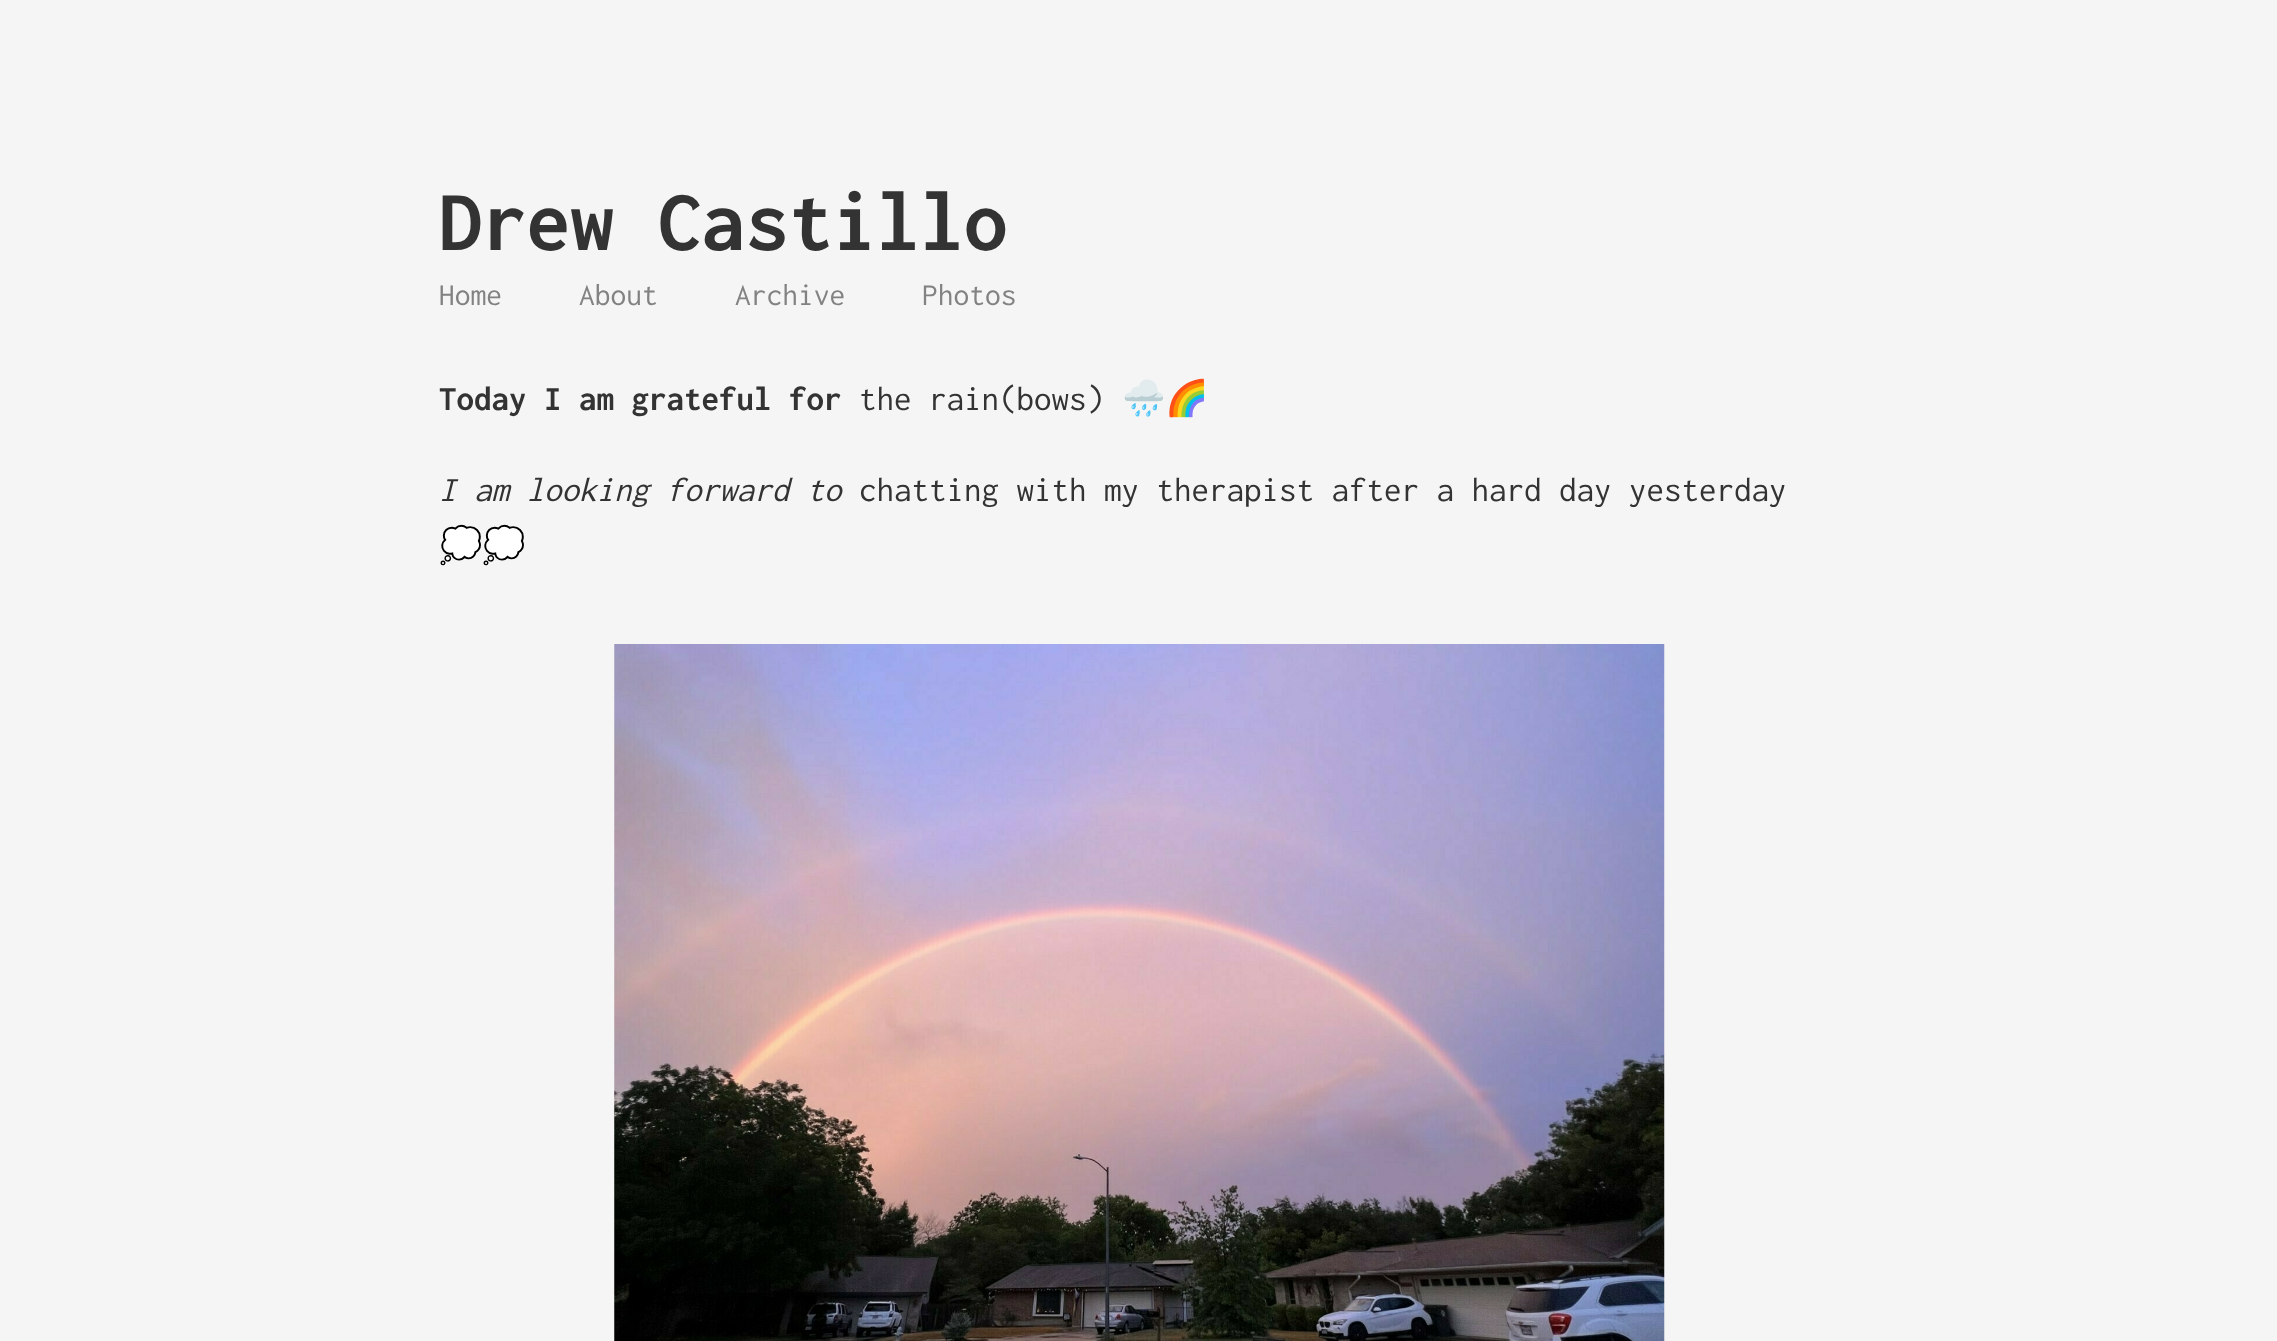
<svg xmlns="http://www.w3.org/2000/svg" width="2277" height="1341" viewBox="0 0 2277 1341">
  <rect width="100%" height="100%" fill="#f5f5f5"/>
  <image x="614" y="644" width="1051" height="697" href="img/1.png"/>
  <text x="439" y="250" font-family="Inconsolata" font-size="87.5" font-weight="bold" fill="#333">Drew Castillo</text>
  <g font-family="Inconsolata" font-size="31.5" fill="#828282">
    <text x="439" y="305">Home</text>
    <text x="579" y="305">About</text>
    <text x="735" y="305">Archive</text>
    <text x="922" y="305">Photos</text>
  </g>
  <text x="439" y="410" font-family="Inconsolata" font-size="35" font-weight="bold" fill="#333">Today I am grateful for</text>
  <text x="859" y="410" font-family="Inconsolata" font-size="35" fill="#333">the rain(bows)</text>
  <text x="1122" y="410" font-family="Noto Color Emoji" font-size="35" fill="#333">🌧️🌈</text>
  <text x="439" y="501" font-family="Inconsolata" font-size="35" font-style="italic" fill="#333">I am looking forward to</text>
  <text x="859" y="501" font-family="Inconsolata" font-size="35" fill="#333">chatting with my therapist after a hard day yesterday</text>
  <text x="439" y="557" font-family="Noto Color Emoji" font-size="35" fill="#333">💭💭</text>
</svg>
